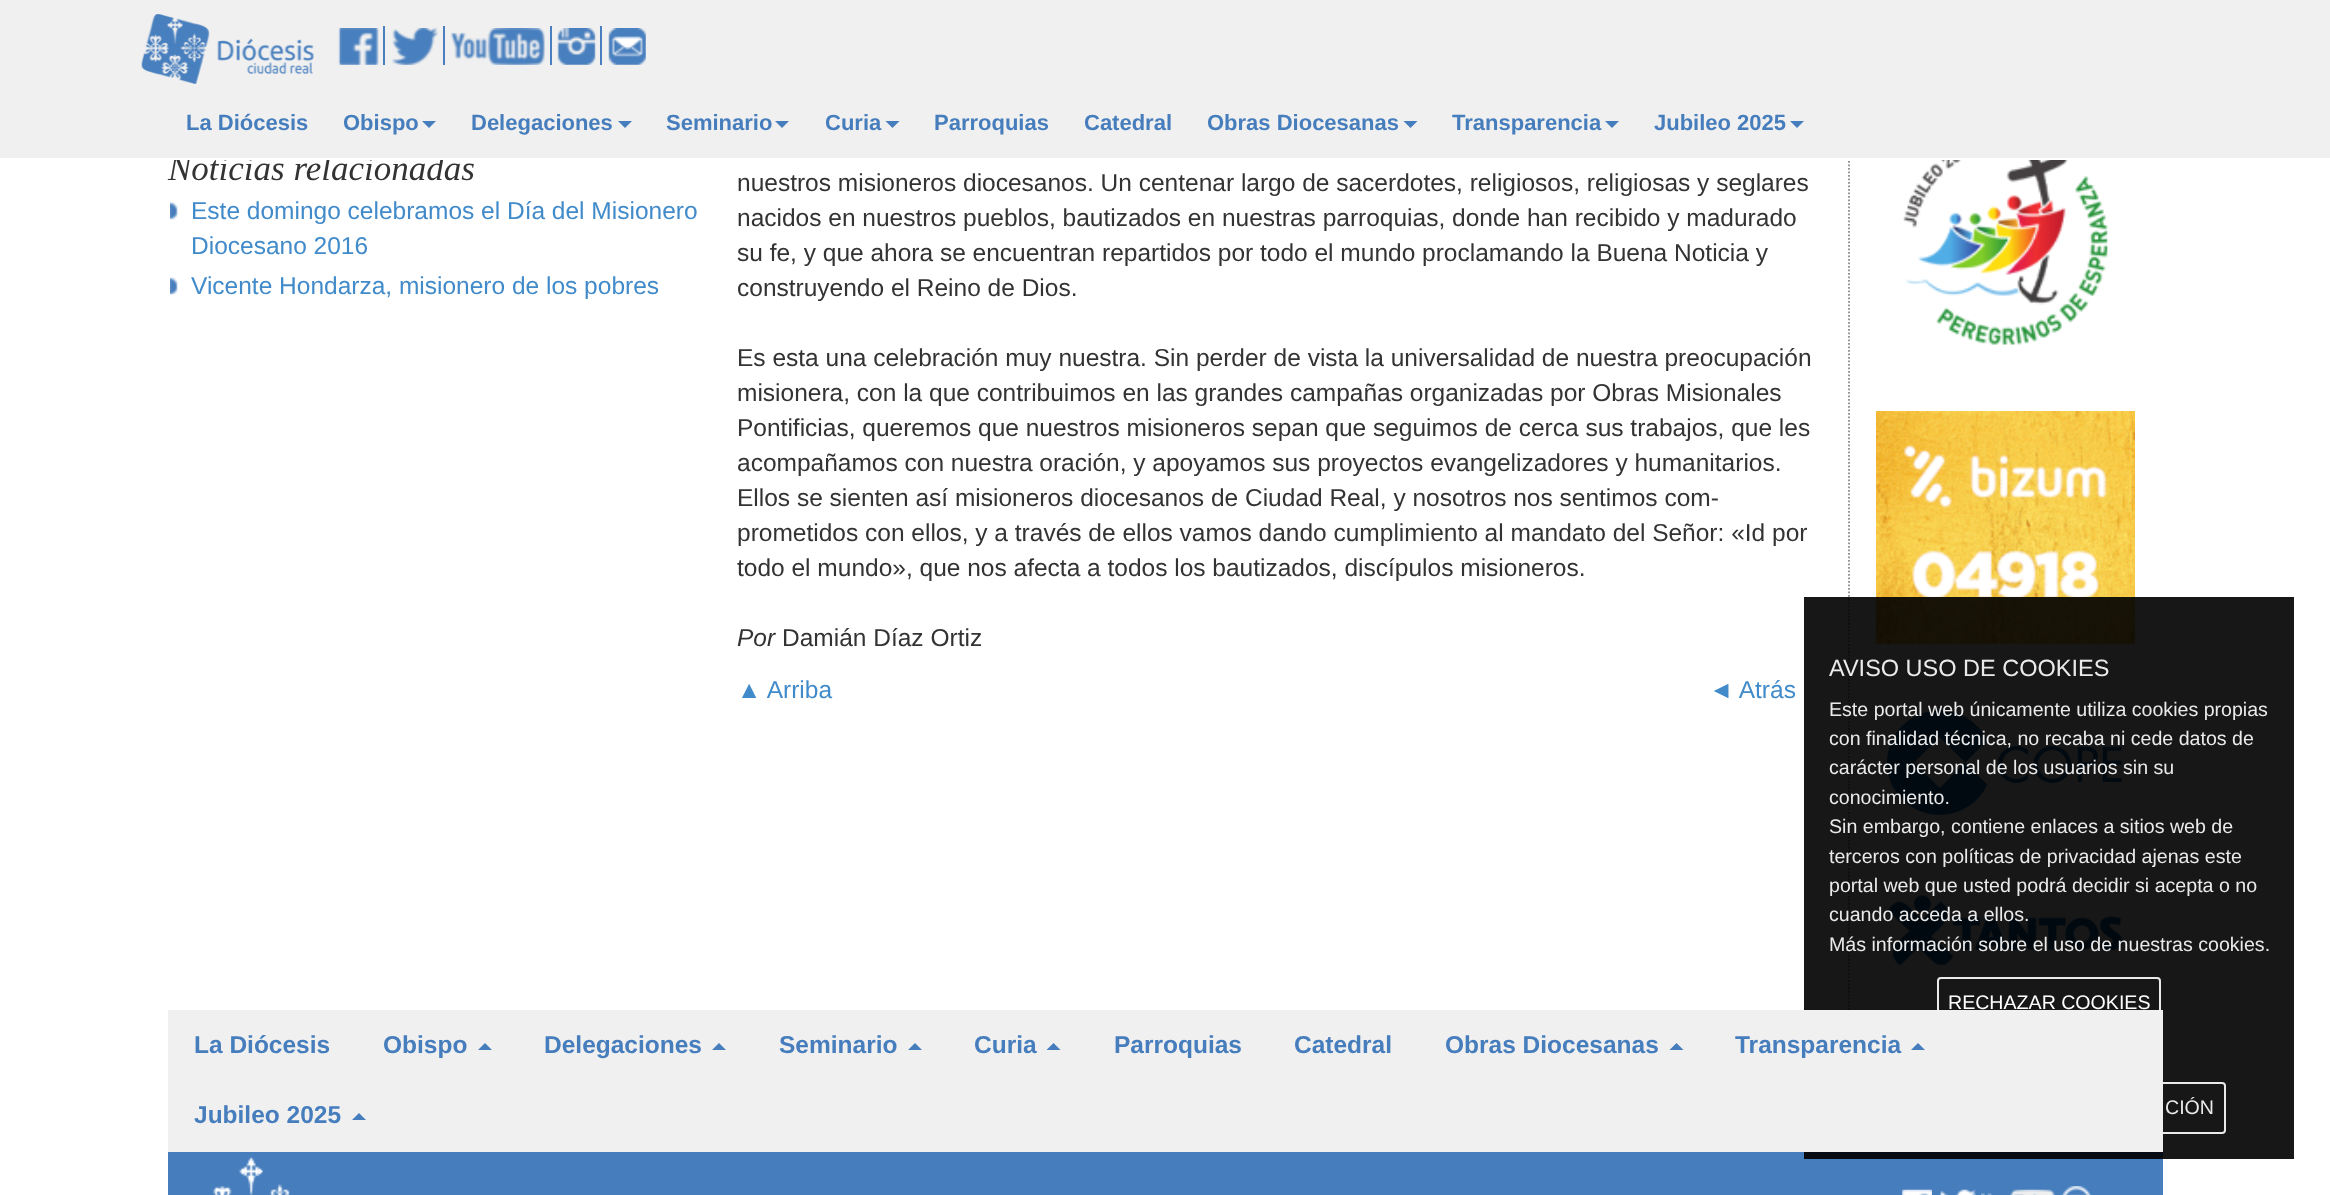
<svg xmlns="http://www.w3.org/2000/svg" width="2330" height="1195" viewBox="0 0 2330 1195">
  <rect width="100%" height="100%" fill="#fff"/>
  <image x="170" y="202" width="8" height="18" href="img/7.png"/>
  <image x="170" y="277" width="8" height="18" href="img/8.png"/>
  <path d="M1849-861V1010" fill="none" stroke="#8b8b8b" stroke-width="1.8" stroke-dasharray="1.75 1.75"/>
  <image x="1903" y="160" width="205" height="185" href="img/9.png"/>
  <image x="1876" y="411" width="259" height="233" href="img/10.png"/>
  <image x="1886" y="710" width="236" height="106" href="img/11.png"/>
  <image x="1887" y="895" width="236" height="70" href="img/12.png"/>
  <path d="M168 1152h1995v43H168z" fill="#467dbd"/>
  <path d="M1804 597h490v562H1804z" fill="#000000e8"/>
  <rect x="1938" y="978" width="222" height="50" rx="3" fill="none" stroke="#ffffffe8" stroke-width="2"/>
  <rect x="1874" y="1083" width="351" height="50" rx="3" fill="none" stroke="#ffffffe8" stroke-width="2"/>
  <path d="M168 1010h1995v142H168z" fill="#f0f0f0"/>
  <path d="M492 1050H478L485 1043Z" fill="#467dbd"/>
  <path d="M726 1050H712L719 1043Z" fill="#467dbd"/>
  <path d="M922 1050H908L915 1043Z" fill="#467dbd"/>
  <path d="M1060.5 1050H1046.5L1053.5 1043Z" fill="#467dbd"/>
  <path d="M1683.5 1050H1669.5L1676.5 1043Z" fill="#467dbd"/>
  <path d="M1925 1050H1911L1918 1043Z" fill="#467dbd"/>
  <path d="M366 1120H352L359 1113Z" fill="#467dbd"/>
  <image x="213" y="1156" width="77" height="39" href="img/13.png"/>
  <image x="1902" y="1189" width="30" height="6" href="img/14.png"/>
  <image x="1939" y="1189" width="37" height="6" href="img/15.png"/>
  <image x="1981" y="1189" width="74" height="6" href="img/16.png"/>
  <image x="2061" y="1186" width="31" height="9" href="img/17.png"/>
  <text x="168" y="180" font-family="Liberation Serif" font-size="35" font-style="italic" fill="#333">Noticias relacionadas</text>
  <path d="M0 0h2330v158H0z" fill="#f0f0f0"/>
  <path d="M1790 121H1804L1797 128Z" fill="#467dbd"/>
  <text x="1654" y="130" font-family="Liberation Sans" font-size="22" font-weight="bold" fill="#467dbd">Jubileo 2025</text>
  <path d="M1605 121H1619L1612 128Z" fill="#467dbd"/>
  <text x="1452" y="130" font-family="Liberation Sans" font-size="22" font-weight="bold" fill="#467dbd">Transparencia</text>
  <path d="M1403.5 121H1417.5L1410.5 128Z" fill="#467dbd"/>
  <g font-family="Liberation Sans" font-size="22" font-weight="bold" fill="#467dbd">
    <text x="1207" y="130">Obras Diocesanas</text>
    <text x="1084" y="130">Catedral</text>
    <text x="934" y="130">Parroquias</text>
  </g>
  <path d="M885.5 121H899.5L892.5 128Z" fill="#467dbd"/>
  <text x="825" y="130" font-family="Liberation Sans" font-size="22" font-weight="bold" fill="#467dbd">Curia</text>
  <path d="M775 121H789L782 128Z" fill="#467dbd"/>
  <text x="666" y="130" font-family="Liberation Sans" font-size="22" font-weight="bold" fill="#467dbd">Seminario</text>
  <path d="M618 121H632L625 128Z" fill="#467dbd"/>
  <text x="471" y="130" font-family="Liberation Sans" font-size="22" font-weight="bold" fill="#467dbd">Delegaciones</text>
  <path d="M422 121H436L429 128Z" fill="#467dbd"/>
  <g font-family="Liberation Sans" font-size="22" font-weight="bold" fill="#467dbd">
    <text x="343" y="130">Obispo</text>
    <text x="186" y="130">La Diócesis</text>
  </g>
  <image x="608" y="28" width="38" height="37" href="img/6.png"/>
  <image x="557" y="28" width="39" height="37" href="img/5.png"/>
  <path d="M600 26h2v39H600z" fill="#497fbe"/>
  <image x="450" y="28" width="95" height="37" href="img/4.png"/>
  <path d="M550 26h2v39H550z" fill="#497fbe"/>
  <image x="391" y="28" width="47" height="37" href="img/3.png"/>
  <path d="M443 26h2v39H443z" fill="#497fbe"/>
  <image x="338" y="28" width="41" height="37" href="img/2.png"/>
  <path d="M383 26h2v39H383z" fill="#497fbe"/>
  <image x="141" y="14" width="173" height="70" href="img/1.png"/>
  <path d="M172 158h1678v2H172z" fill="#fff"/>
  <g font-family="Liberation Sans" font-size="24.5" fill="#428bca">
    <text x="191" y="219">Este domingo celebramos el Día del Misionero</text>
    <text x="191" y="254">Diocesano 2016</text>
    <text x="191" y="294">Vicente Hondarza, misionero de los pobres</text>
  </g>
  <g font-family="Liberation Sans" font-size="24.5" fill="#333">
    <text x="737" y="191">nuestros misioneros diocesanos. Un centenar largo de sacerdotes, religiosos, religiosas y seglares</text>
    <text x="737" y="226">nacidos en nuestros pueblos, bautizados en nuestras parroquias, donde han recibido y madurado</text>
    <text x="737" y="261">su fe, y que ahora se encuentran repartidos por todo el mundo proclamando la Buena Noticia y</text>
    <text x="737" y="296">construyendo el Reino de Dios.</text>
    <text x="737" y="366">Es esta una celebración muy nuestra. Sin perder de vista la universalidad de nuestra preocupación</text>
    <text x="737" y="401">misionera, con la que contribuimos en las grandes campañas organizadas por Obras Misionales</text>
    <text x="737" y="436">Pontificias, queremos que nuestros misioneros sepan que seguimos de cerca sus trabajos, que les</text>
    <text x="737" y="471">acompañamos con nuestra oración, y apoyamos sus proyectos evangelizadores y humanitarios.</text>
    <text x="737" y="506">Ellos se sienten así misioneros diocesanos de Ciudad Real, y nosotros nos sentimos com-</text>
    <text x="737" y="541">prometidos con ellos, y a través de ellos vamos dando cumplimiento al mandato del Señor: «Id por</text>
    <text x="737" y="576">todo el mundo», que nos afecta a todos los bautizados, discípulos misioneros.</text>
  </g>
  <text x="737" y="646" font-family="Liberation Sans" font-size="24.5" font-style="italic" fill="#333">Por</text>
  <text x="782" y="646" font-family="Liberation Sans" font-size="24.5" fill="#333">Damián Díaz Ortiz</text>
  <g font-family="Liberation Sans" font-size="24.5" fill="#428bca">
    <text x="737" y="698">▲ Arriba</text>
    <text x="1709" y="698">◄ Atrás</text>
  </g>
  <g font-family="Liberation Sans" font-size="24.5" font-weight="bold" fill="#467dbd">
    <text x="194" y="1053">La Diócesis</text>
    <text x="383" y="1053">Obispo</text>
    <text x="544" y="1053">Delegaciones</text>
    <text x="779" y="1053">Seminario</text>
    <text x="974" y="1053">Curia</text>
    <text x="1114" y="1053">Parroquias</text>
    <text x="1294" y="1053">Catedral</text>
    <text x="1445" y="1053">Obras Diocesanas</text>
    <text x="1735" y="1053">Transparencia</text>
    <text x="194" y="1123">Jubileo 2025</text>
  </g>
  <text x="1829" y="676" font-family="Liberation Sans" font-size="23.5" fill="#eaeaea">AVISO USO DE COOKIES</text>
  <g font-family="Liberation Sans" font-size="19.6" fill="#eaeaea">
    <text x="1829" y="716">Este portal web únicamente utiliza cookies propias</text>
    <text x="1829" y="745">con finalidad técnica, no recaba ni cede datos de</text>
    <text x="1829" y="774">carácter personal de los usuarios sin su</text>
    <text x="1829" y="804">conocimiento.</text>
    <text x="1829" y="833">Sin embargo, contiene enlaces a sitios web de</text>
    <text x="1829" y="863">terceros con políticas de privacidad ajenas este</text>
    <text x="1829" y="892">portal web que usted podrá decidir si acepta o no</text>
    <text x="1829" y="921">cuando acceda a ellos.</text>
    <text x="1829" y="951">Más información sobre el uso de nuestras cookies.</text>
  </g>
  <text x="1948" y="1009" font-family="Liberation Sans" font-size="19.6" fill="#fff">RECHAZAR COOKIES</text>
  <text x="2165" y="1114" font-family="Liberation Sans" font-size="19.6" fill="#eaeaea">CIÓN</text>
</svg>
